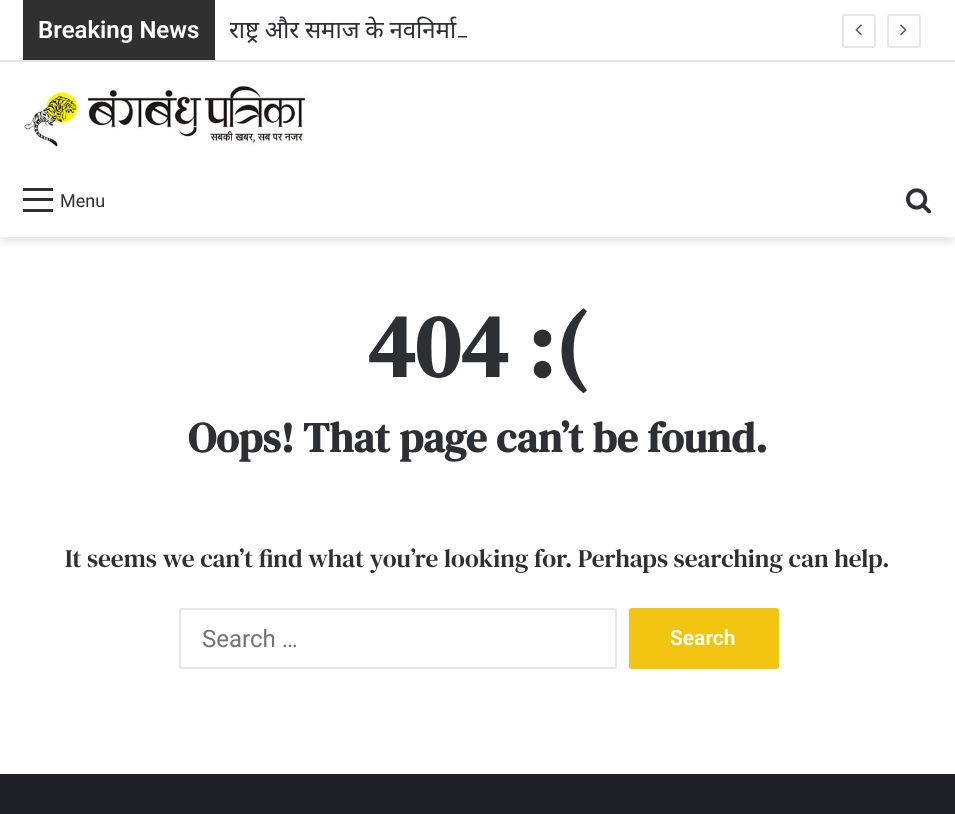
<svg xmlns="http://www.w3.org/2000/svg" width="955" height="814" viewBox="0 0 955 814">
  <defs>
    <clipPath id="clip1"><path d="M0 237h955v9H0z"/></clipPath>
    <clipPath id="clip2"><path d="M230 0h598v60H230z"/></clipPath>
  </defs>
  <rect width="100%" height="100%" fill="#fff"/>
  <g clip-path="url(#clip1)">
    <path d="M0 66h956v176H0z" fill="#0000001a" filter="blur(5px)"/>
  </g>
  <path d="M0 60h955v2H0z" fill="#e6e6e6"/>
  <path d="M23 0h192v60H23z" fill="#303030"/>
  <rect x="843" y="15" width="32" height="32" rx="2" fill="none" stroke="#e6e6e6" stroke-width="2"/>
  <image x="855" y="24" width="7" height="12" href="img/1.png"/>
  <rect x="888" y="15" width="32" height="32" rx="2" fill="none" stroke="#e6e6e6" stroke-width="2"/>
  <image x="900" y="24" width="7" height="12" href="img/2.png"/>
  <image x="23" y="83" width="285" height="65" href="img/3.png"/>
  <path d="M23 198h30v3H23z" fill="#2c2f34"/>
  <path d="M23 188h30v3H23z" fill="#2c2f34"/>
  <path d="M23 209h30v3H23z" fill="#2c2f34"/>
  <image x="906" y="188" width="26" height="26" href="img/4.png"/>
  <rect x="180" y="609" width="436" height="59" rx="2" fill="none" stroke="#e6e6e6" stroke-width="2"/>
  <rect x="629" y="608" width="150" height="61" rx="3" fill="#f1c40f"/>
  <path d="M0 774h955v40H0z" fill="#1f2024"/>
  <text x="38" y="38" font-family="Roboto" font-size="24" font-weight="600" fill="#fff">Breaking News</text>
  <g clip-path="url(#clip2)">
    <text x="229" y="38" word-spacing="-0.5" font-family="Noto Sans" font-size="24" fill="#2c2f34">राष्ट्र और समाज के नवनिर्मा</text>
  </g>
  <text x="458" y="36" font-family="Roboto" font-size="20" fill="#2c2f34">_</text>
  <text x="60" y="207" font-family="Roboto" font-size="18" fill="#2c2f34">Menu</text>
  <text x="367" y="377" font-family="DM Serif Text" font-size="90" font-weight="bold" fill="#2c2f34">404 :(</text>
  <text x="188" y="452" font-family="DM Serif Text" font-size="42" font-weight="bold" fill="#2c2f34">Oops! That page can’t be found.</text>
  <text x="65" y="567" font-family="DM Serif Text" font-size="25.5" fill="#2c2f34">It seems we can’t find what you’re looking for. Perhaps searching can help.</text>
  <text x="202" y="647" font-family="Roboto" font-size="24" fill="#757575">Search …</text>
  <text x="670" y="645" font-family="Roboto" font-size="21" font-weight="600" fill="#fff">Search</text>
</svg>
